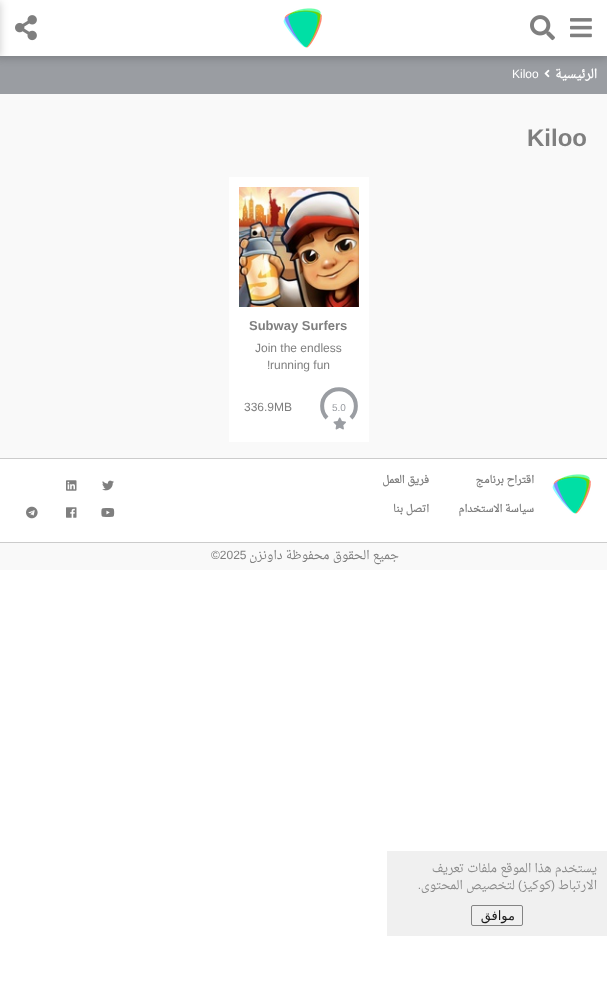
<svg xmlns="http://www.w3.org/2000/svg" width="607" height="996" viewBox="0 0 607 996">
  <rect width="100%" height="100%" fill="#fff"/>
  <path d="M0 56h607v38H0z" fill="#9a9da2"/>
  <image x="544" y="69" width="6" height="9" href="img/5.png"/>
  <path d="M0 2h607v56H0z" fill="#00000033" filter="blur(4px)"/>
  <path d="M0 0h607v56H0z" fill="#fff"/>
  <image x="570" y="18" width="22" height="20" href="img/1.png"/>
  <image x="530" y="15" width="25" height="26" href="img/2.png"/>
  <image x="283" y="8" width="39" height="40" href="img/3.png"/>
  <image x="15" y="15" width="22" height="26" href="img/4.png"/>
  <path d="M-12 2h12v55H-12z" fill="#00000033" filter="blur(4px)"/>
  <path d="M0 94h607v364H0z" fill="#f9f9f9"/>
  <path d="M229 177h140v265H229z" fill="#fff"/>
  <image x="239" y="187" width="120" height="120" href="img/6.png"/>
  <path d="M351 418C357.5 411.5 357.5 400.5 351 394C344.5 387.5 333.5 387.5 327 394C320.5 400.5 320.5 411.5 327 418" fill="none" stroke="#9a9da2" stroke-width="4"/>
  <image x="333" y="417" width="13" height="13" href="img/7.png"/>
  <path d="M0 458h607v1H0z" fill="#ccc"/>
  <path d="M0 542h607v1H0z" fill="#ccc"/>
  <image x="552" y="474" width="39" height="40" href="img/3.png"/>
  <image x="102" y="480" width="12" height="11" href="img/8.png"/>
  <image x="66" y="480" width="11" height="11" href="img/9.png"/>
  <image x="101" y="508" width="14" height="9" href="img/10.png"/>
  <image x="66" y="507" width="11" height="11" href="img/11.png"/>
  <image x="26" y="506" width="12" height="13" href="img/12.png"/>
  <path d="M0 543h607v27H0z" fill="#f9f9f9"/>
  <path d="M387 851h220v85H387z" fill="#f0f0f0"/>
  <rect x="471.5" y="905.5" width="51" height="20" rx="1.5" fill="none" stroke="#848484"/>
  <text x="597" y="78" font-family="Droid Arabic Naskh" font-size="12" font-weight="bold" direction="rtl" fill="#fff">الرئيسية</text>
  <text x="512" y="78" font-family="Liberation Sans" font-size="12" fill="#fff">Kiloo</text>
  <text x="527" y="146" font-family="Liberation Sans" font-size="24" font-weight="bold" fill="#7f7f7f">Kiloo</text>
  <text x="249" y="330" font-family="Liberation Sans" font-size="13" font-weight="bold" fill="#7f7f7f">Subway Surfers</text>
  <g font-family="Liberation Sans" font-size="12" fill="#7f7f7f">
    <text x="255" y="352">Join the endless</text>
    <text x="270" y="369">running fun</text>
    <text x="267" y="369">!</text>
  </g>
  <text x="332" y="411" font-family="Liberation Sans" font-size="10" fill="#9a9da2">5.0</text>
  <text x="244" y="411" font-family="Liberation Sans" font-size="12" fill="#7f7f7f">336.9MB</text>
  <g font-family="Droid Arabic Naskh" font-size="10.25" font-weight="bold" direction="rtl" fill="#7f7f7f">
    <text x="534" y="483">اقتراح برنامج</text>
    <text x="429" y="483">فريق العمل</text>
    <text x="534" y="512">سياسة الاستخدام</text>
    <text x="429" y="512">اتصل بنا</text>
  </g>
  <text x="399" y="559" font-family="Droid Arabic Naskh" font-size="12" direction="rtl" fill="#7f7f7f">جميع الحقوق محفوظة داونزن</text>
  <text x="211" y="559" font-family="Liberation Sans" font-size="12" fill="#7f7f7f">©2025</text>
  <g font-family="Droid Arabic Naskh" font-size="12" direction="rtl" fill="#8c8c8c">
    <text x="597" y="872">يستخدم هذا الموقع ملفات تعريف</text>
    <text x="597" y="889">الارتباط</text>
  </g>
  <g font-family="Liberation Sans" font-size="12" direction="rtl" fill="#8c8c8c">
    <text x="555" y="889">(</text>
    <text x="522" y="889">)</text>
  </g>
  <g font-family="Droid Arabic Naskh" font-size="12" direction="rtl" fill="#8c8c8c">
    <text x="551" y="889">كوكيز</text>
    <text x="515" y="889">لتخصيص المحتوى</text>
  </g>
  <text x="421" y="889" font-family="Liberation Sans" font-size="12" direction="rtl" fill="#8c8c8c">.</text>
  <text x="515" y="920" font-family="DejaVu Sans" font-size="13" direction="rtl" fill="#1a1a1a">موافق</text>
</svg>
